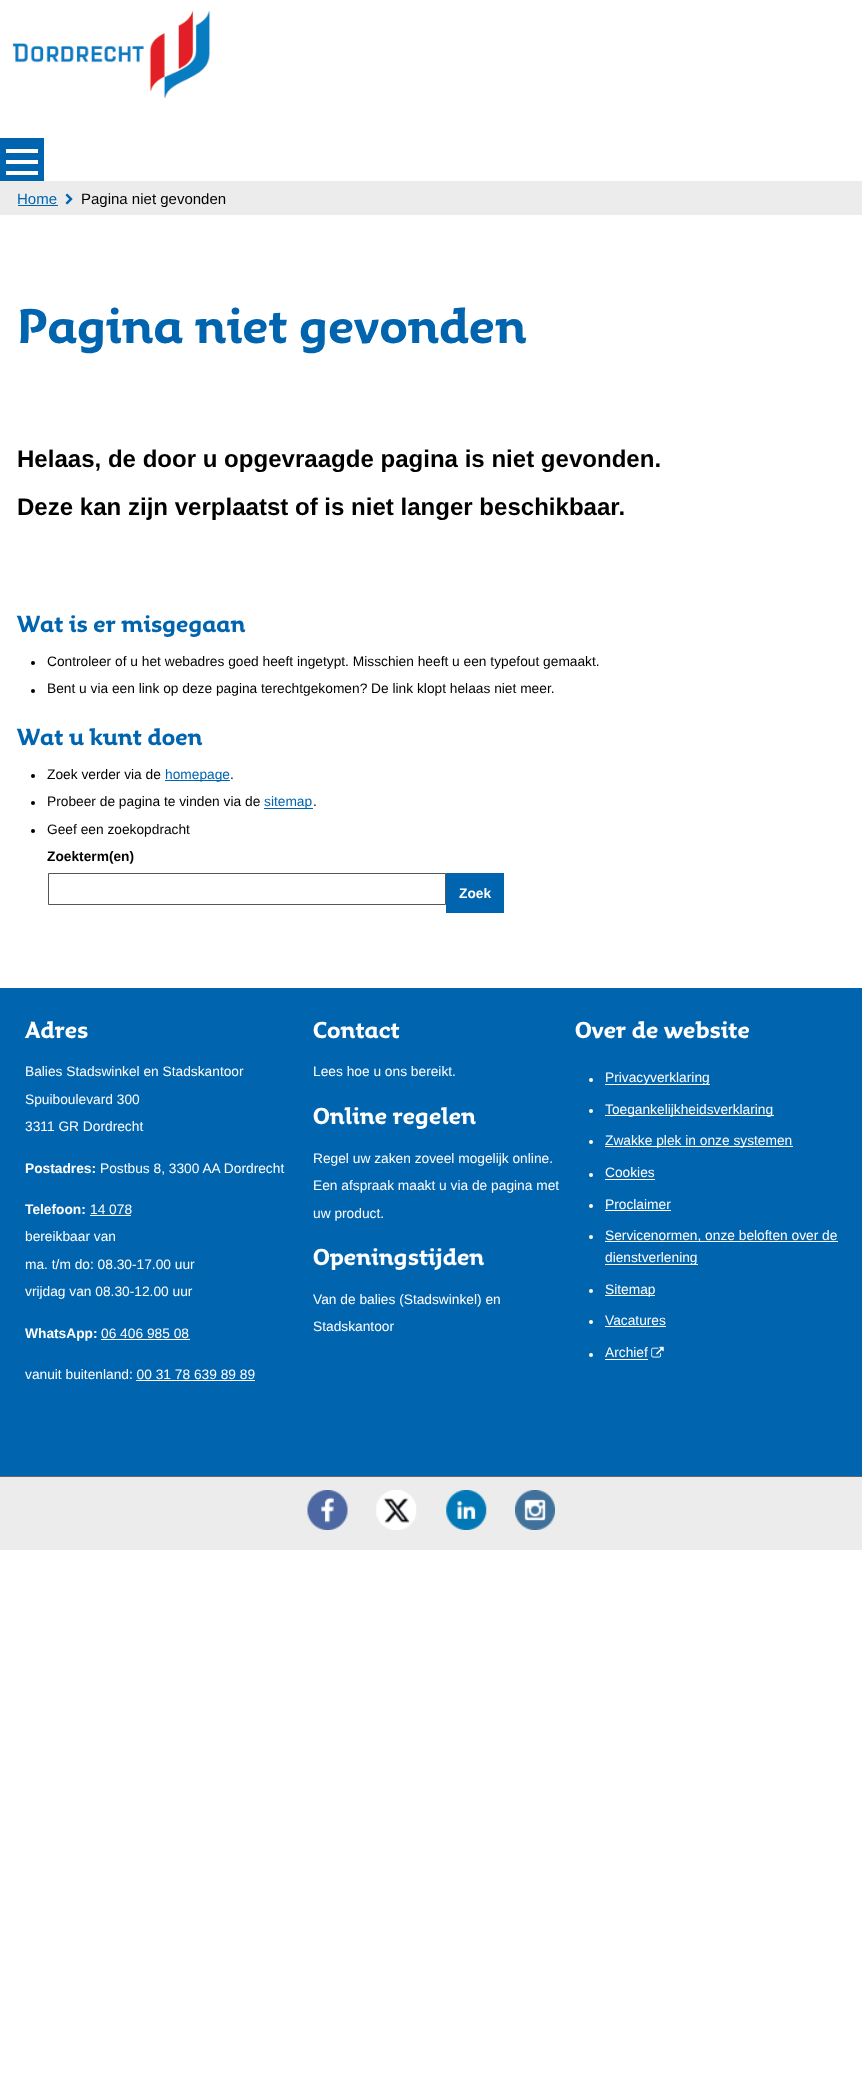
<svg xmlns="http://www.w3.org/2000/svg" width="862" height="2089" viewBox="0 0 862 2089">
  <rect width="100%" height="100%" fill="#fff"/>
  <image x="12" y="10" width="199" height="88" href="img/1.png"/>
  <path d="M0 138h44v43H0z" fill="#0064af"/>
  <path d="M6 171h32v4H6z" fill="#fff"/>
  <path d="M6 160h32v4H6z" fill="#fff"/>
  <path d="M6 149h32v4H6z" fill="#fff"/>
  <path d="M0 181h862v34H0z" fill="#ececec"/>
  <path d="M18 205h40v1H18z" fill="#0064af"/>
  <image x="65" y="193" width="8" height="12" href="img/2.png"/>
  <circle cx="33" cy="663" r="2" fill="#000"/>
  <circle cx="33" cy="691" r="2" fill="#000"/>
  <circle cx="33" cy="776" r="2" fill="#000"/>
  <path d="M165 780h65v1H165z" fill="#0064af"/>
  <circle cx="33" cy="803" r="2" fill="#000"/>
  <path d="M264 808h49v1H264z" fill="#0064af"/>
  <circle cx="33" cy="831" r="2" fill="#000"/>
  <path d="M48.5 873.5h397v31H48.5z" fill="none" stroke="#555"/>
  <path d="M446 873h58v40H446z" fill="#0064af"/>
  <path d="M0 988h862v488H0z" fill="#0064af"/>
  <path d="M90 1215h41v1H90z" fill="#fff"/>
  <path d="M101 1339h89v1H101z" fill="#fff"/>
  <path d="M136 1380h119v1H136z" fill="#fff"/>
  <circle cx="591" cy="1080" r="2" fill="#fff"/>
  <path d="M605 1084h105v1H605z" fill="#fff"/>
  <circle cx="591" cy="1111" r="2" fill="#fff"/>
  <path d="M605 1115h169v1H605z" fill="#fff"/>
  <circle cx="591" cy="1142" r="2" fill="#fff"/>
  <path d="M605 1146h188v1H605z" fill="#fff"/>
  <circle cx="591" cy="1175" r="2" fill="#fff"/>
  <path d="M605 1179h50v1H605z" fill="#fff"/>
  <circle cx="591" cy="1206" r="2" fill="#fff"/>
  <path d="M605 1210h66v1H605z" fill="#fff"/>
  <circle cx="591" cy="1237" r="2" fill="#fff"/>
  <path d="M605 1241h233v1H605z" fill="#fff"/>
  <path d="M605 1264h93v1H605z" fill="#fff"/>
  <circle cx="591" cy="1291" r="2" fill="#fff"/>
  <path d="M605 1295h50v1H605z" fill="#fff"/>
  <circle cx="591" cy="1322" r="2" fill="#fff"/>
  <path d="M605 1326h61v1H605z" fill="#fff"/>
  <circle cx="591" cy="1355" r="2" fill="#fff"/>
  <path d="M605 1359h43v1H605z" fill="#fff"/>
  <image x="651" y="1346" width="13" height="12" href="img/3.png"/>
  <path d="M0 1477h862v73H0z" fill="#ececec"/>
  <path d="M0 1476h862v1H0z" fill="#666"/>
  <image x="307" y="1490" width="41" height="40" href="img/4.png"/>
  <image x="376" y="1490" width="41" height="40" href="img/5.png"/>
  <image x="446" y="1490" width="41" height="40" href="img/6.png"/>
  <image x="515" y="1490" width="40" height="40" href="img/7.png"/>
  <text x="17" y="204" font-family="Liberation Sans" font-size="15" fill="#0064af">Home</text>
  <text x="81" y="204" font-family="Liberation Sans" font-size="15" fill="#000">Pagina niet gevonden</text>
  <text x="17" y="343" font-family="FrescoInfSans" font-size="47.25" font-weight="bold" fill="#0064af">Pagina niet gevonden</text>
  <g font-family="Liberation Sans" font-size="24.05" font-weight="bold" fill="#000">
    <text x="17" y="467">Helaas, de door u opgevraagde pagina is niet gevonden.</text>
    <text x="17" y="515">Deze kan zijn verplaatst of is niet langer beschikbaar.</text>
  </g>
  <text x="17" y="632" font-family="FrescoInfSans" font-size="22.5" font-weight="bold" fill="#0064af">Wat is er misgegaan</text>
  <g font-family="Liberation Sans" font-size="13.75" fill="#000">
    <text x="47" y="666">Controleer of u het webadres goed heeft ingetypt. Misschien heeft u een typefout gemaakt.</text>
    <text x="47" y="693">Bent u via een link op deze pagina terechtgekomen? De link klopt helaas niet meer.</text>
  </g>
  <text x="17" y="745" font-family="FrescoInfSans" font-size="22.5" font-weight="bold" fill="#0064af">Wat u kunt doen</text>
  <text x="47" y="779" font-family="Liberation Sans" font-size="13.75" fill="#000">Zoek verder via de</text>
  <text x="165" y="779" font-family="Liberation Sans" font-size="13.75" fill="#0064af">homepage</text>
  <g font-family="Liberation Sans" font-size="13.75" fill="#000">
    <text x="230" y="779">.</text>
    <text x="47" y="806">Probeer de pagina te vinden via de</text>
  </g>
  <text x="264" y="806" font-family="Liberation Sans" font-size="13.75" fill="#0064af">sitemap</text>
  <g font-family="Liberation Sans" font-size="13.75" fill="#000">
    <text x="313" y="806">.</text>
    <text x="47" y="834">Geef een zoekopdracht</text>
  </g>
  <text x="47" y="861" font-family="Liberation Sans" font-size="13.75" font-weight="bold" fill="#000">Zoekterm(en)</text>
  <text x="459" y="898" font-family="Liberation Sans" font-size="13.75" font-weight="bold" fill="#fff">Zoek</text>
  <text x="25" y="1038" font-family="FrescoInfSans" font-size="22.5" font-weight="bold" fill="#fff">Adres</text>
  <g font-family="Liberation Sans" font-size="13.75" fill="#fff">
    <text x="25" y="1076">Balies Stadswinkel en Stadskantoor</text>
    <text x="25" y="1104">Spuiboulevard 300</text>
    <text x="25" y="1131">3311 GR Dordrecht</text>
  </g>
  <text x="25" y="1173" font-family="Liberation Sans" font-size="13.75" font-weight="bold" fill="#fff">Postadres:</text>
  <text x="100" y="1173" font-family="Liberation Sans" font-size="13.75" fill="#fff">Postbus 8, 3300 AA Dordrecht</text>
  <text x="25" y="1214" font-family="Liberation Sans" font-size="13.75" font-weight="bold" fill="#fff">Telefoon:</text>
  <g font-family="Liberation Sans" font-size="13.75" fill="#fff">
    <text x="90" y="1214">14 078</text>
    <text x="25" y="1241">bereikbaar van</text>
    <text x="25" y="1269">ma. t/m do: 08.30-17.00 uur</text>
    <text x="25" y="1296">vrijdag van 08.30-12.00 uur</text>
  </g>
  <text x="25" y="1338" font-family="Liberation Sans" font-size="13.75" font-weight="bold" fill="#fff">WhatsApp:</text>
  <g font-family="Liberation Sans" font-size="13.75" fill="#fff">
    <text x="101" y="1338">06 406 985 08</text>
    <text x="25" y="1379">vanuit buitenland: 00 31 78 639 89 89</text>
  </g>
  <text x="313" y="1038" font-family="FrescoInfSans" font-size="22.5" font-weight="bold" fill="#fff">Contact</text>
  <text x="313" y="1076" font-family="Liberation Sans" font-size="13.75" fill="#fff">Lees hoe u ons bereikt.</text>
  <text x="313" y="1124" font-family="FrescoInfSans" font-size="22.5" font-weight="bold" fill="#fff">Online regelen</text>
  <g font-family="Liberation Sans" font-size="13.75" fill="#fff">
    <text x="313" y="1163">Regel uw zaken zoveel mogelijk online.</text>
    <text x="313" y="1190">Een afspraak maakt u via de pagina met</text>
    <text x="313" y="1218">uw product.</text>
  </g>
  <text x="313" y="1265" font-family="FrescoInfSans" font-size="22.5" font-weight="bold" fill="#fff">Openingstijden</text>
  <g font-family="Liberation Sans" font-size="13.75" fill="#fff">
    <text x="313" y="1304">Van de balies (Stadswinkel) en</text>
    <text x="313" y="1331">Stadskantoor</text>
  </g>
  <text x="575" y="1038" font-family="FrescoInfSans" font-size="22.5" font-weight="bold" fill="#fff">Over de website</text>
  <g font-family="Liberation Sans" font-size="13.75" fill="#fff">
    <text x="605" y="1082">Privacyverklaring</text>
    <text x="605" y="1114">Toegankelijkheidsverklaring</text>
    <text x="605" y="1145">Zwakke plek in onze systemen</text>
    <text x="605" y="1177">Cookies</text>
    <text x="605" y="1209">Proclaimer</text>
    <text x="605" y="1240">Servicenormen, onze beloften over de</text>
    <text x="605" y="1262">dienstverlening</text>
    <text x="605" y="1294">Sitemap</text>
    <text x="605" y="1325">Vacatures</text>
    <text x="605" y="1357">Archief</text>
  </g>
</svg>
